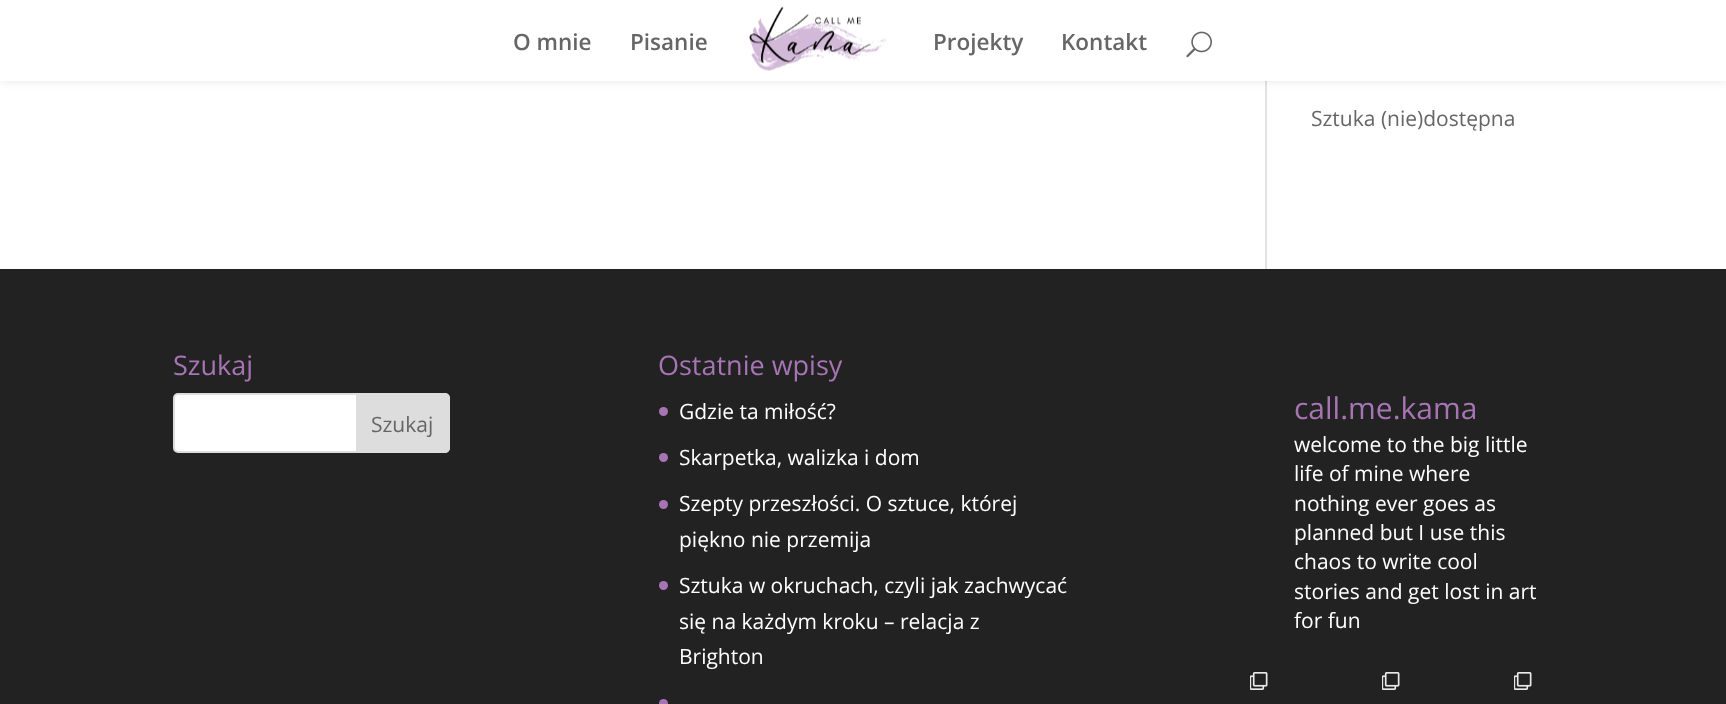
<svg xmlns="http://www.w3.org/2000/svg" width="1726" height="704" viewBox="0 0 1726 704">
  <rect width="100%" height="100%" fill="#fff"/>
  <path d="M1265 81h2v188H1265z" fill="#e2e2e2"/>
  <path d="M0 0h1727v81H0z" fill="#0000001a" filter="blur(5px)"/>
  <path d="M0 0h1726v81H0z" fill="#fff"/>
  <image x="749" y="6" width="138" height="65" href="img/1.png"/>
  <image x="1186" y="31" width="26" height="27" href="img/2.png"/>
  <path d="M0 269h1726v435H0z" fill="#222"/>
  <rect x="174" y="394" width="275" height="58" rx="4" fill="#fff" stroke="#ddd" stroke-width="2"/>
  <path d="M357 394H445C447 394 449 396 449 398V448C449 450 447 452 445 452H357Z" fill="#ddd" stroke="#ddd" stroke-width="2"/>
  <circle cx="663.5" cy="411.5" r="4.5" fill="#a774b4"/>
  <circle cx="663.5" cy="457.5" r="4.5" fill="#a774b4"/>
  <circle cx="663.5" cy="504.5" r="4.5" fill="#a774b4"/>
  <circle cx="663.5" cy="585.5" r="4.5" fill="#a774b4"/>
  <circle cx="663.5" cy="703.5" r="4.5" fill="#a774b4"/>
  <image x="1250" y="672" width="18" height="18" href="img/3.png"/>
  <image x="1382" y="672" width="18" height="18" href="img/3.png"/>
  <image x="1514" y="672" width="18" height="18" href="img/3.png"/>
  <g font-family="Open Sans" font-size="22.5" font-weight="600" fill="#666">
    <text x="513" y="50">O mnie</text>
    <text x="630" y="50">Pisanie</text>
    <text x="933" y="50">Projekty</text>
    <text x="1061" y="50">Kontakt</text>
  </g>
  <text x="1311" y="126" font-family="Open Sans" font-size="21" fill="#666">Sztuka (nie)dostępna</text>
  <text x="173" y="375" font-family="Open Sans" font-size="27" fill="#a774b4">Szukaj</text>
  <text x="371" y="432" font-family="Open Sans" font-size="21" fill="#666">Szukaj</text>
  <text x="658" y="375" font-family="Open Sans" font-size="27" fill="#a774b4">Ostatnie wpisy</text>
  <g font-family="Open Sans" font-size="21" fill="#fff">
    <text x="679" y="419">Gdzie ta miłość?</text>
    <text x="679" y="465">Skarpetka, walizka i dom</text>
    <text x="679" y="511">Szepty przeszłości. O sztuce, której</text>
    <text x="679" y="547">piękno nie przemija</text>
    <text x="679" y="593">Sztuka w okruchach, czyli jak zachwycać</text>
    <text x="679" y="629">się na każdym kroku – relacja z</text>
    <text x="679" y="664">Brighton</text>
  </g>
  <text x="1294" y="419" font-family="Open Sans" font-size="30" fill="#a774b4">call.me.kama</text>
  <g font-family="Open Sans" font-size="21" fill="#fff">
    <text x="1294" y="452">welcome to the big little</text>
    <text x="1294" y="481">life of mine where</text>
    <text x="1294" y="511">nothing ever goes as</text>
    <text x="1294" y="540">planned but I use this</text>
    <text x="1294" y="569">chaos to write cool</text>
    <text x="1294" y="599">stories and get lost in art</text>
    <text x="1294" y="628">for fun</text>
  </g>
</svg>
